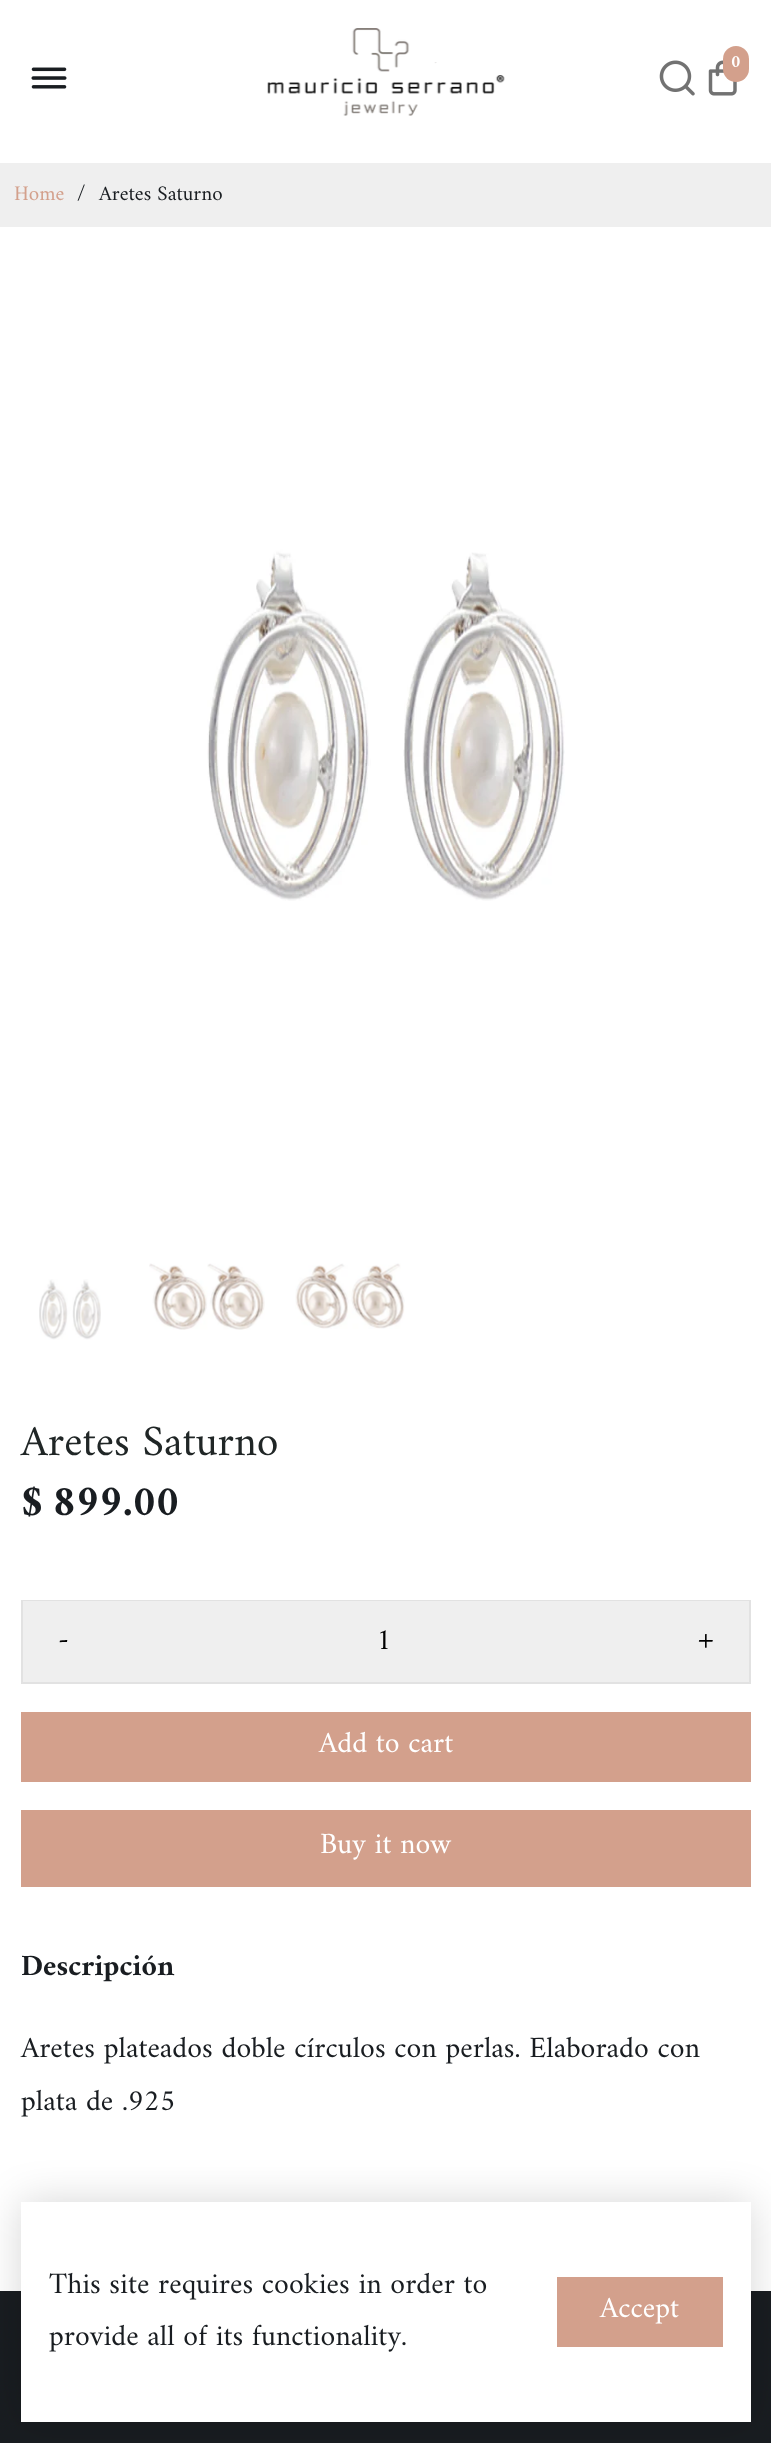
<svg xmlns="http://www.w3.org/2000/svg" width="771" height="2443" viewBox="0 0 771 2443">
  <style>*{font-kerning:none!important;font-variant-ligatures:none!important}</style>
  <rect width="100%" height="100%" fill="#fff"/>
  <image x="267" y="28" width="238" height="88" href="img/1.png"/>
  <image x="659" y="60" width="36" height="36" href="img/2.png"/>
  <image x="708" y="60" width="29" height="36" href="img/3.png"/>
  <rect x="723" y="46" width="26" height="36" rx="13" fill="#d3a08c"/>
  <image x="31" y="67" width="36" height="22" href="img/4.png"/>
  <path d="M0 163h771v64H0z" fill="#efefef"/>
  <image x="0" y="227" width="771" height="674" href="img/5.png"/>
  <image x="39" y="1279" width="62" height="61" href="img/6.png"/>
  <image x="149" y="1263" width="116" height="67" href="img/7.png"/>
  <image x="295" y="1263" width="110" height="66" href="img/8.png"/>
  <path d="M22 1601h728v82H22z" fill="none" stroke="#e2e2e2" stroke-width="2"/>
  <path d="M23 1601h726v81H23z" fill="#efefef"/>
  <path d="M21 1712h730v70H21z" fill="#d3a08c"/>
  <path d="M21 1810h730v77H21z" fill="#d3a08c"/>
  <path d="M0 2291h771v152H0z" fill="#191d21"/>
  <path d="M21 2202h730v220H21z" fill="#00000029" filter="blur(21px)"/>
  <path d="M21 2202h730v220H21z" fill="#fff"/>
  <path d="M557 2277h166v70H557z" fill="#d3a08c"/>
  <text x="731" y="67" font-family="Amiri" font-size="18" font-weight="bold" fill="#fff">0</text>
  <text x="14" y="200" font-family="Amiri" font-size="21" fill="#d3a08c">Home</text>
  <g font-family="Amiri" font-size="21" fill="#191d21">
    <text x="77" y="200">/</text>
    <text x="99" y="200">Aretes Saturno</text>
  </g>
  <text x="21" y="1455" font-family="Amiri" font-size="43.75" fill="#202626">Aretes Saturno</text>
  <text x="21" y="1515" word-spacing="-3" font-family="Amiri" font-size="43.75" font-weight="bold" fill="#191d21">$ 899.00</text>
  <g font-family="Amiri" font-size="29.75" fill="#000">
    <text x="58" y="1648">-</text>
    <text x="376" y="1649">1</text>
    <text x="698" y="1648">+</text>
  </g>
  <g font-family="Amiri" font-size="29.75" fill="#fff">
    <text x="319" y="1752">Add to cart</text>
    <text x="320" y="1853">Buy it now</text>
  </g>
  <text x="21" y="1975" font-family="Amiri" font-size="29.75" font-weight="bold" fill="#191d21">Descripción</text>
  <g font-family="Amiri" font-size="29.75" fill="#191d21">
    <text x="21" y="2057">Aretes plateados doble círculos con perlas. Elaborado con</text>
    <text x="21" y="2110">plata de .925</text>
    <text x="49" y="2293">This site requires cookies in order to</text>
    <text x="49" y="2345">provide all of its functionality.</text>
  </g>
  <text x="600" y="2317" font-family="Amiri" font-size="29.75" fill="#fff">Accept</text>
</svg>
